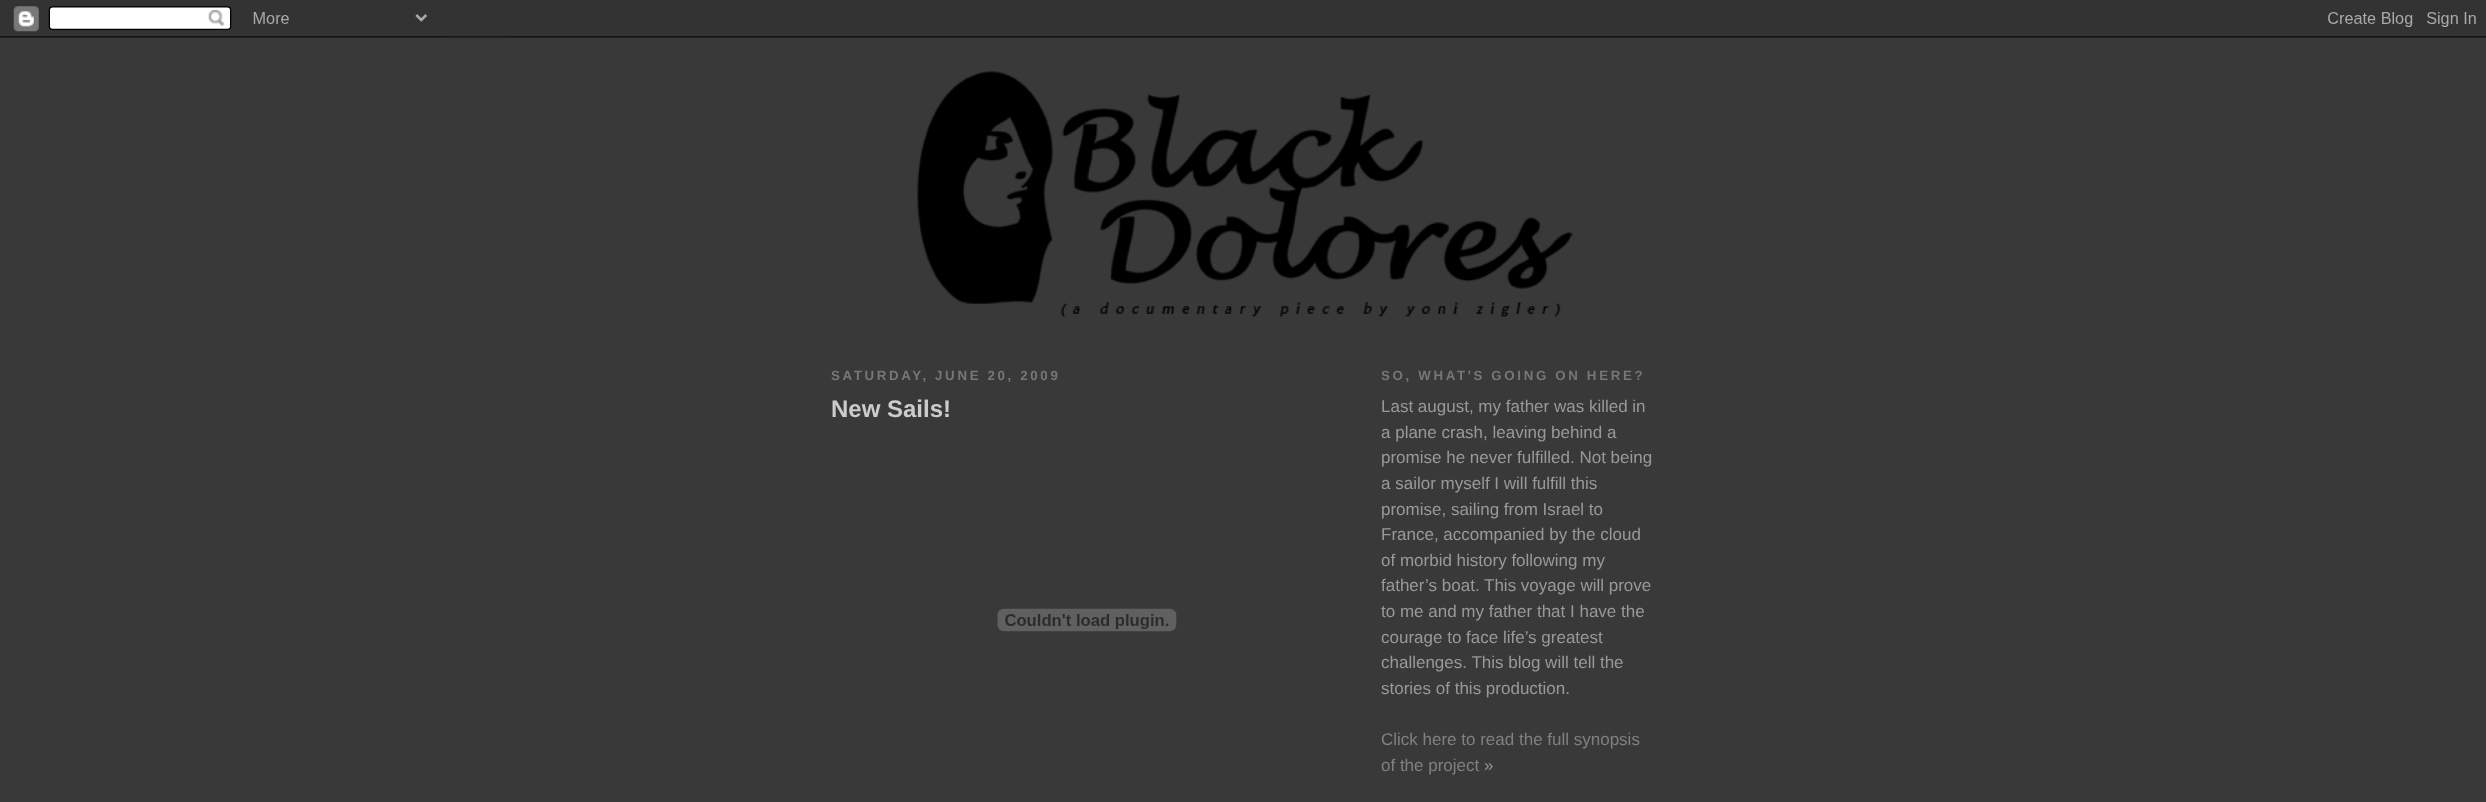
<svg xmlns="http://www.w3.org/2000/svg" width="2486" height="802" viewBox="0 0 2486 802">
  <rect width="100%" height="100%" fill="#393939"/>
  <image x="0" y="0" width="2486" height="38" href="img/1.png"/>
  <image x="917" y="71" width="656" height="246" href="img/2.png"/>
  <image x="997" y="608" width="180" height="24" href="img/3.png"/>
  <text x="831" y="380" font-family="Liberation Sans" font-size="13.3" font-weight="bold" letter-spacing="2.65" fill="#777">SATURDAY, JUNE 20, 2009</text>
  <text x="831" y="417" font-family="Liberation Sans" font-size="24" font-weight="bold" fill="#ccc">New Sails!</text>
  <text x="1381" y="380" font-family="Liberation Sans" font-size="13.3" font-weight="bold" letter-spacing="2.65" fill="#777">SO, WHAT'S GOING ON HERE?</text>
  <g font-family="Liberation Sans" font-size="17" fill="#999">
    <text x="1381" y="412">Last august, my father was killed in</text>
    <text x="1381" y="438">a plane crash, leaving behind a</text>
    <text x="1381" y="463">promise he never fulfilled. Not being</text>
    <text x="1381" y="489">a sailor myself I will fulfill this</text>
    <text x="1381" y="515">promise, sailing from Israel to</text>
    <text x="1381" y="540">France, accompanied by the cloud</text>
    <text x="1381" y="566">of morbid history following my</text>
    <text x="1381" y="591">father’s boat. This voyage will prove</text>
    <text x="1381" y="617">to me and my father that I have the</text>
    <text x="1381" y="643">courage to face life’s greatest</text>
    <text x="1381" y="668">challenges. This blog will tell the</text>
    <text x="1381" y="694">stories of this production.</text>
  </g>
  <g font-family="Liberation Sans" font-size="17" fill="#808080">
    <text x="1381" y="745">Click here to read the full synopsis</text>
    <text x="1381" y="771">of the project</text>
  </g>
  <text x="1484" y="771" font-family="Liberation Sans" font-size="17" fill="#999">»</text>
</svg>
